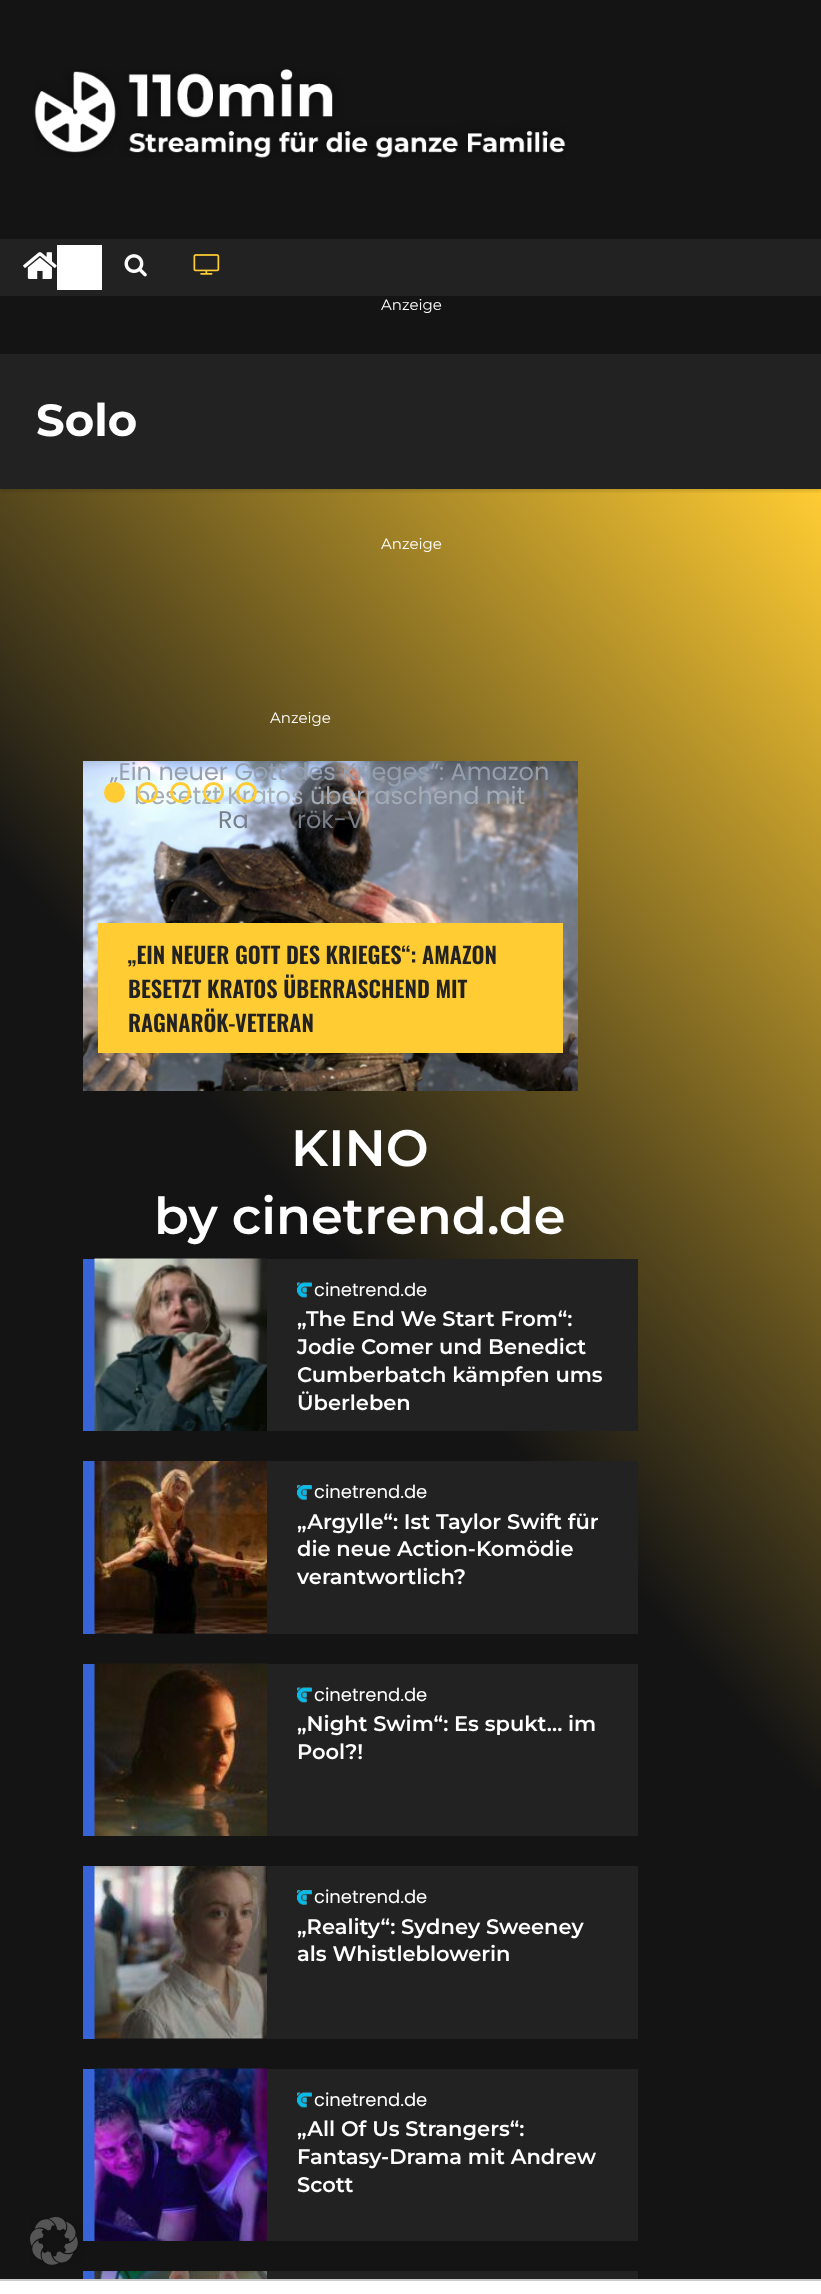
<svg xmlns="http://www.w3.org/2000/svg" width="821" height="2294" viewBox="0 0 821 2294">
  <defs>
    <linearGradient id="g1" gradientUnits="userSpaceOnUse" x1="-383" y1="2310" x2="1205" y2="930"><stop offset="0.59" stop-color="#141414"/><stop offset="1" stop-color="#fc3"/></linearGradient>
    <clipPath id="clip1"><path d="M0 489h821v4H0z"/></clipPath>
  </defs>
  <rect width="100%" height="100%" fill="#141414"/>
  <image x="34" y="69" width="532" height="89" href="img/1.png"/>
  <path d="M0 239h821v57H0z" fill="#222"/>
  <image x="23" y="252" width="34" height="27" href="img/2.png"/>
  <path d="M57 245h45v45H57z" fill="#fff"/>
  <image x="124" y="254" width="23" height="23" href="img/3.png"/>
  <image x="193" y="254" width="27" height="21" href="img/4.png"/>
  <path d="M0 489h821v1300H0z" fill="url(#g1)"/>
  <g clip-path="url(#clip1)">
    <path d="M0 326h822v165H0z" fill="#00000026" filter="blur(2px)"/>
  </g>
  <path d="M0 354h821v135H0z" fill="#222"/>
  <image x="83" y="761" width="495" height="330" href="img/5.png"/>
  <path d="M98 923h465v130H98z" fill="#fc3"/>
  <path d="M83 1259h12v172H83z" fill="#3765d8"/>
  <image x="94" y="1258" width="173" height="173" href="img/6.png"/>
  <path d="M267 1259h371v172H267z" fill="#222"/>
  <image x="297" y="1282" width="15" height="16" href="img/7.png"/>
  <path d="M83 1461h12v173H83z" fill="#3765d8"/>
  <image x="94" y="1461" width="173" height="173" href="img/8.png"/>
  <path d="M267 1461h371v173H267z" fill="#222"/>
  <image x="297" y="1485" width="15" height="15" href="img/9.png"/>
  <path d="M83 1664h12v172H83z" fill="#3765d8"/>
  <image x="94" y="1663" width="173" height="173" href="img/10.png"/>
  <path d="M267 1664h371v172H267z" fill="#222"/>
  <image x="297" y="1687" width="15" height="16" href="img/7.png"/>
  <path d="M83 1866h12v173H83z" fill="#3765d8"/>
  <image x="94" y="1866" width="173" height="173" href="img/11.png"/>
  <path d="M267 1866h371v173H267z" fill="#222"/>
  <image x="297" y="1890" width="15" height="15" href="img/9.png"/>
  <path d="M83 2069h12v172H83z" fill="#3765d8"/>
  <image x="94" y="2068" width="173" height="173" href="img/12.png"/>
  <path d="M267 2069h371v172H267z" fill="#222"/>
  <image x="297" y="2092" width="15" height="16" href="img/7.png"/>
  <path d="M83 2271h12v8H83z" fill="#3765d8"/>
  <image x="94" y="2271" width="173" height="8" href="img/13.png"/>
  <path d="M267 2271h371v8H267z" fill="#222"/>
  <image x="30" y="2217" width="54" height="48" href="img/14.png"/>
  <path d="M0 2281h821v13H0z" fill="#fff"/>
  <path d="M0 2279h821v2H0z" fill="#ccc"/>
  <text x="381" y="310" font-family="Montserrat" font-size="15" fill="#fff">Anzeige</text>
  <text x="36" y="436" font-family="Montserrat" font-size="45" font-weight="bold" fill="#fff">Solo</text>
  <g font-family="Montserrat" font-size="15" fill="#fff">
    <text x="381" y="549">Anzeige</text>
    <text x="270" y="723">Anzeige</text>
  </g>
  <text x="110" y="780" font-family="Poppins" font-size="24" fill="#969fae">„Ein neuer Gott des Krieges“: Amazon</text>
  <text x="134" y="804" font-family="Poppins" font-size="24" fill="#a4adb6">besetzt Kratos überraschend mit</text>
  <g font-family="Poppins" font-size="24" fill="#797e89">
    <text x="218" y="828">Ra</text>
    <text x="297" y="828">rök-V</text>
  </g>
  <g font-family="Oswald" font-size="22.5" font-weight="600" fill="#222">
    <text x="128" y="964">„EIN NEUER GOTT DES KRIEGES“: AMAZON</text>
    <text x="128" y="998">BESETZT KRATOS ÜBERRASCHEND MIT</text>
    <text x="128" y="1032">RAGNARÖK-VETERAN</text>
  </g>
  <circle cx="114.5" cy="792.5" r="10.5" fill="#fc3"/>
  <circle cx="147.5" cy="792.5" r="9" fill="none" stroke="#fc3" stroke-width="3"/>
  <circle cx="180.5" cy="792.5" r="9" fill="none" stroke="#fc3" stroke-width="3"/>
  <circle cx="213.5" cy="792.5" r="9" fill="none" stroke="#fc3" stroke-width="3"/>
  <circle cx="246.5" cy="792.5" r="9" fill="none" stroke="#fc3" stroke-width="3"/>
  <g font-family="Montserrat" font-size="51" font-weight="600" fill="#fff">
    <text x="291" y="1166">KINO</text>
    <text x="154" y="1234">by cinetrend.de</text>
  </g>
  <text x="314" y="1296" font-family="Poppins" font-size="18" fill="#fff">cinetrend.de</text>
  <g font-family="Montserrat" font-size="21" font-weight="600" fill="#fff">
    <text x="297" y="1326">„The End We Start From“:</text>
    <text x="297" y="1354">Jodie Comer und Benedict</text>
    <text x="297" y="1382">Cumberbatch kämpfen ums</text>
    <text x="297" y="1410">Überleben</text>
  </g>
  <text x="314" y="1498" font-family="Poppins" font-size="18" fill="#fff">cinetrend.de</text>
  <g font-family="Montserrat" font-size="21" font-weight="600" fill="#fff">
    <text x="297" y="1529">„Argylle“: Ist Taylor Swift für</text>
    <text x="297" y="1556">die neue Action-Komödie</text>
    <text x="297" y="1584">verantwortlich?</text>
  </g>
  <text x="314" y="1701" font-family="Poppins" font-size="18" fill="#fff">cinetrend.de</text>
  <g font-family="Montserrat" font-size="21" font-weight="600" fill="#fff">
    <text x="297" y="1731">„Night Swim“: Es spukt… im</text>
    <text x="297" y="1759">Pool?!</text>
  </g>
  <text x="314" y="1903" font-family="Poppins" font-size="18" fill="#fff">cinetrend.de</text>
  <g font-family="Montserrat" font-size="21" font-weight="600" fill="#fff">
    <text x="297" y="1934">„Reality“: Sydney Sweeney</text>
    <text x="297" y="1961">als Whistleblowerin</text>
  </g>
  <text x="314" y="2106" font-family="Poppins" font-size="18" fill="#fff">cinetrend.de</text>
  <g font-family="Montserrat" font-size="21" font-weight="600" fill="#fff">
    <text x="297" y="2136">„All Of Us Strangers“:</text>
    <text x="297" y="2164">Fantasy-Drama mit Andrew</text>
    <text x="297" y="2192">Scott</text>
  </g>
</svg>
